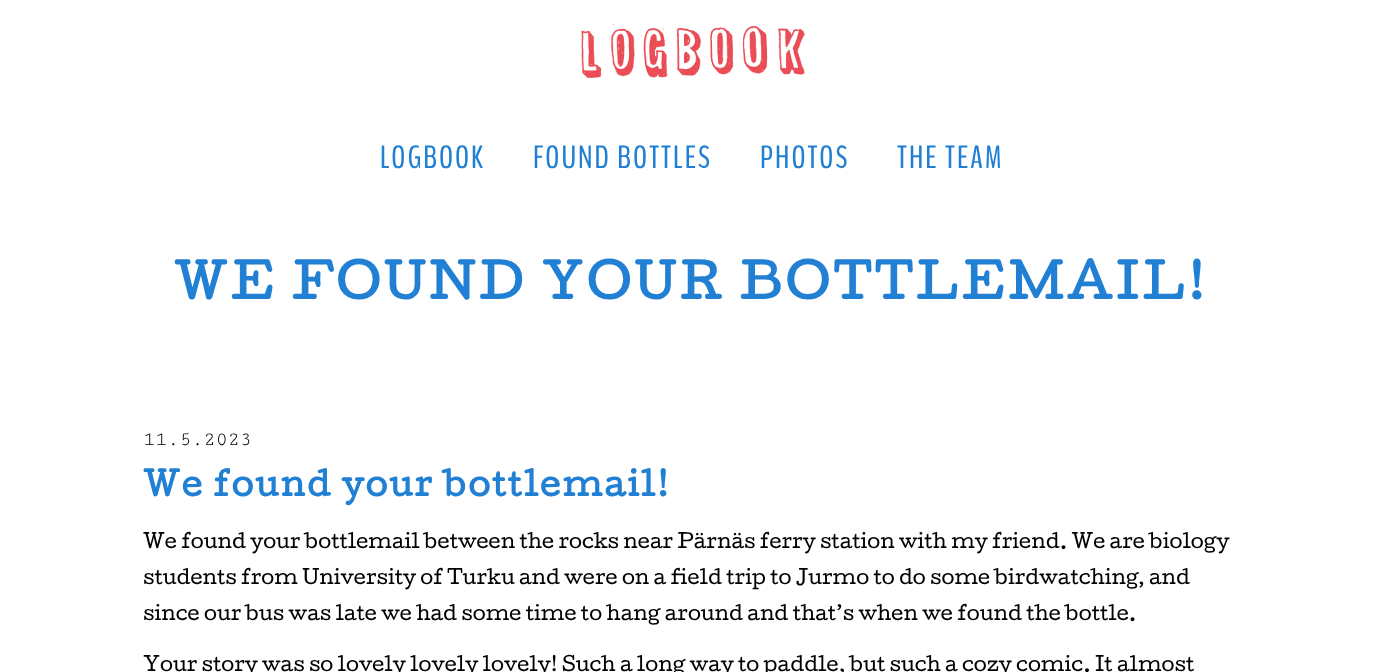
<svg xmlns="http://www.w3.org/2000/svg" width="1383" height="672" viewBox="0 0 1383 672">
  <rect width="100%" height="100%" fill="#fff"/>
  <image x="581" y="23" width="224" height="56" href="img/1.png"/>
  <g font-family="BenchNine" font-size="32" letter-spacing="2" fill="#2180d3">
    <text x="380" y="168">LOGBOOK</text>
    <text x="533" y="168">FOUND BOTTLES</text>
    <text x="760" y="168">PHOTOS</text>
    <text x="897" y="168">THE TEAM</text>
  </g>
  <text x="174" y="299" font-family="Cutive" font-size="46" font-weight="bold" letter-spacing="4" fill="#2180d3">WE FOUND YOUR BOTTLEMAIL!</text>
  <text x="143" y="445" font-family="Cutive Mono" font-size="20" fill="#000">11.5.2023</text>
  <text x="143" y="496" font-family="Cutive" font-size="32" font-weight="bold" letter-spacing="2" fill="#2180d3">We found your bottlemail!</text>
  <g font-family="Cutive" font-size="19" fill="#000">
    <text x="143" y="548">We found your bottlemail between the rocks near Pärnäs ferry station with my friend. We are biology</text>
    <text x="143" y="584">students from University of Turku and were on a field trip to Jurmo to do some birdwatching, and</text>
    <text x="143" y="620">since our bus was late we had some time to hang around and that’s when we found the bottle.</text>
    <text x="143" y="671">Your story was so lovely lovely lovely! Such a long way to paddle, but such a cozy comic. It almost</text>
  </g>
</svg>
